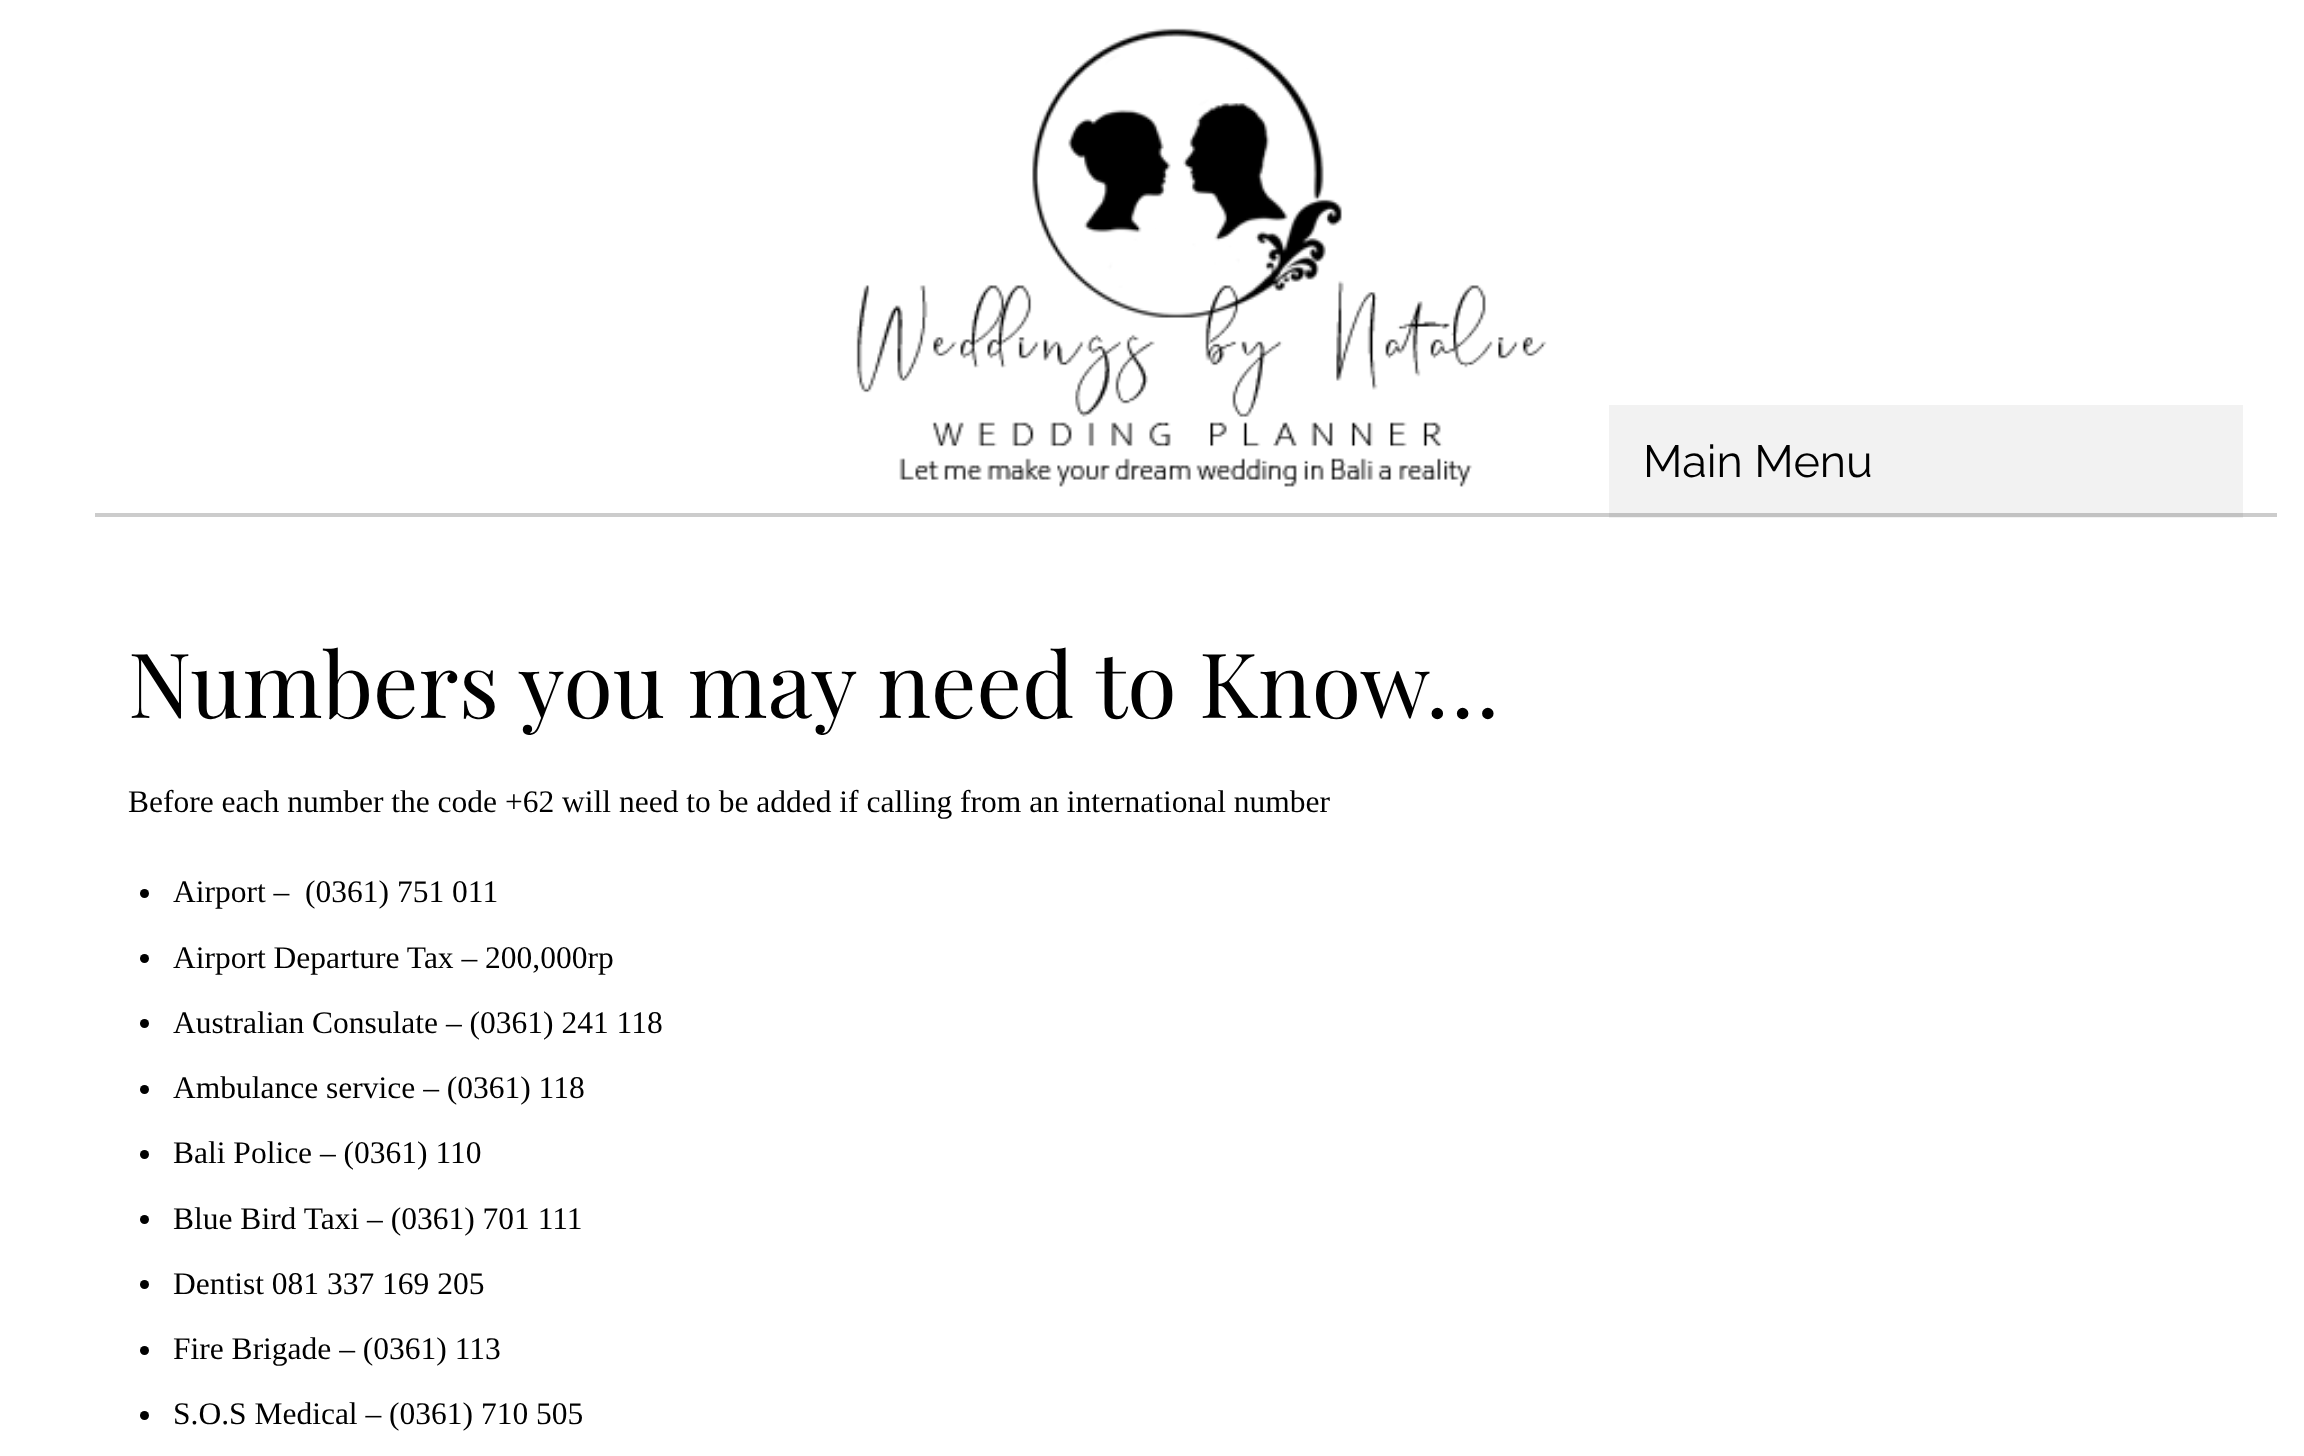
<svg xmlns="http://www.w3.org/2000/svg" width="2304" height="1456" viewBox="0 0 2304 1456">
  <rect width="100%" height="100%" fill="#fff"/>
  <path d="M1609 405h634v113H1609z" fill="#f2f2f2"/>
  <path d="M95 513h2182v4H95z" fill="#ccc"/>
  <path d="M1609 513h634v4H1609z" fill="#c2c2c2"/>
  <image x="856" y="28" width="691" height="459" href="img/1.png"/>
  <circle cx="144.5" cy="893.5" r="4.5" fill="#000"/>
  <circle cx="144.5" cy="958.5" r="4.5" fill="#000"/>
  <circle cx="144.5" cy="1023.5" r="4.5" fill="#000"/>
  <circle cx="144.5" cy="1089.5" r="4.5" fill="#000"/>
  <circle cx="144.5" cy="1154.5" r="4.5" fill="#000"/>
  <circle cx="144.5" cy="1219.5" r="4.5" fill="#000"/>
  <circle cx="144.5" cy="1284.5" r="4.5" fill="#000"/>
  <circle cx="144.5" cy="1350.5" r="4.5" fill="#000"/>
  <circle cx="144.5" cy="1415.5" r="4.5" fill="#000"/>
  <text x="1643" y="477" font-family="Raleway" font-size="45" fill="#000">Main Menu</text>
  <text x="128" y="718" font-family="Playfair Display" font-size="90" fill="#000">Numbers you may need to Know…</text>
  <g font-family="Liberation Serif" font-size="31.5" fill="#000">
    <text x="128" y="812">Before each number the code +62 will need to be added if calling from an international number</text>
    <text x="173" y="902" xml:space="preserve">Airport –  (0361) 751 011</text>
    <text x="173" y="968">Airport Departure Tax – 200,000rp</text>
    <text x="173" y="1033">Australian Consulate – (0361) 241 118</text>
    <text x="173" y="1098">Ambulance service – (0361) 118</text>
    <text x="173" y="1163">Bali Police – (0361) 110</text>
    <text x="173" y="1229">Blue Bird Taxi – (0361) 701 111</text>
    <text x="173" y="1294">Dentist 081 337 169 205</text>
    <text x="173" y="1359">Fire Brigade – (0361) 113</text>
    <text x="173" y="1424">S.O.S Medical – (0361) 710 505</text>
  </g>
</svg>
